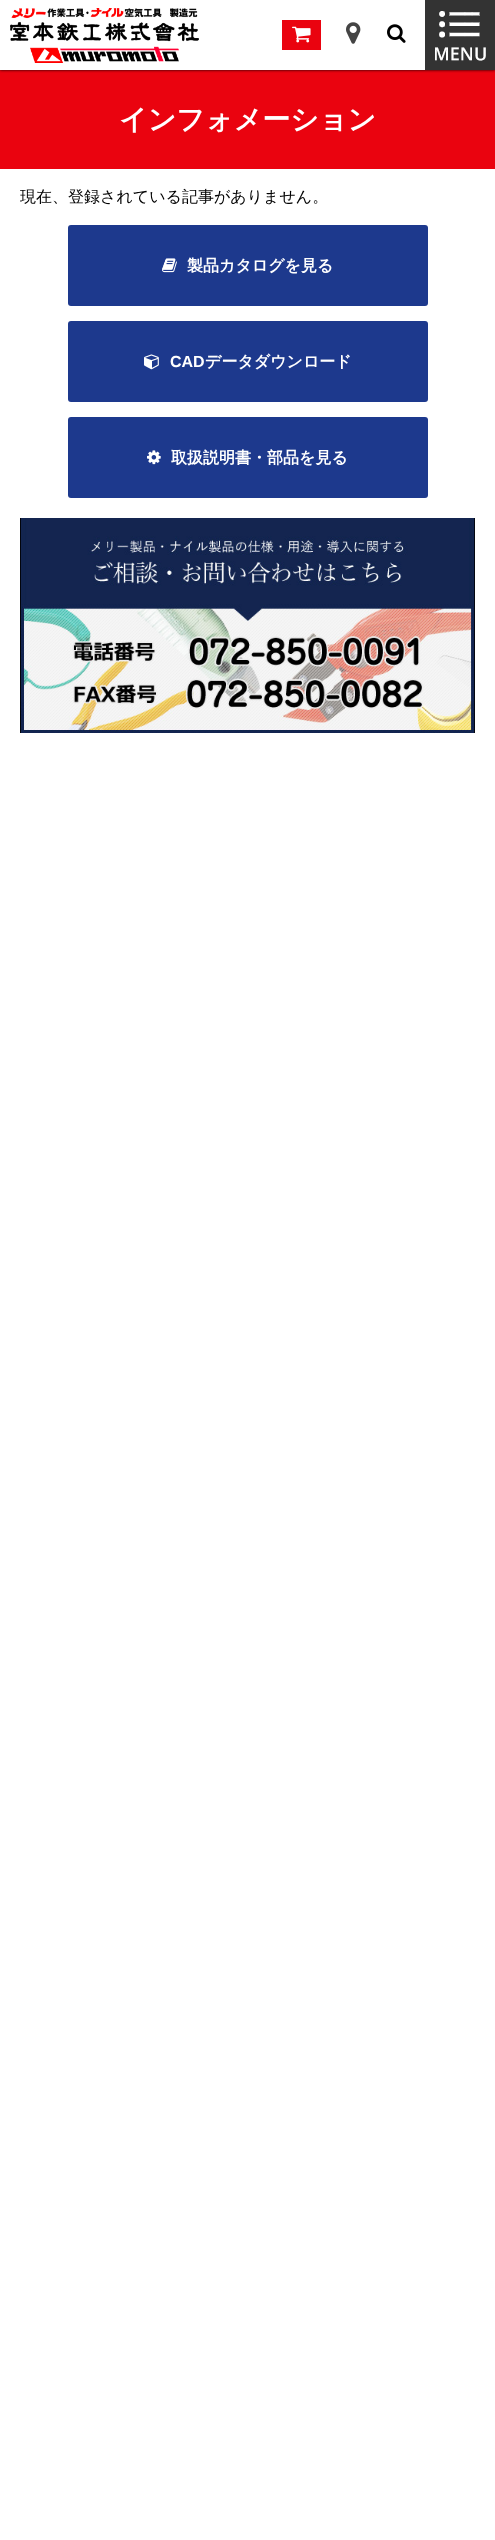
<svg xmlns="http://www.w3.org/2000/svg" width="495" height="2540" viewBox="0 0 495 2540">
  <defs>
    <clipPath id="clip1"><path d="M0 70h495v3H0z"/></clipPath>
  </defs>
  <rect width="100%" height="100%" fill="#fff"/>
  <path d="M0 70h495v99H0z" fill="#ea030f"/>
  <g clip-path="url(#clip1)">
    <path d="M0 0h495v70H0z" fill="#000" filter="blur(1.5px)"/>
  </g>
  <image x="10" y="8" width="189" height="55" href="img/1.png"/>
  <path d="M282 20h39v30H282z" fill="#ea030f"/>
  <image x="292" y="26" width="19" height="17" href="img/2.png"/>
  <image x="346" y="22" width="15" height="22" href="img/3.png"/>
  <image x="387" y="24" width="19" height="19" href="img/4.png"/>
  <image x="425" y="0" width="70" height="70" href="img/5.png"/>
  <rect x="68" y="225" width="360" height="81" rx="3" fill="#1d398d"/>
  <image x="162" y="258" width="15" height="15" href="img/6.png"/>
  <rect x="68" y="321" width="360" height="81" rx="3" fill="#1d398d"/>
  <image x="144" y="354" width="15" height="16" href="img/7.png"/>
  <rect x="68" y="417" width="360" height="81" rx="3" fill="#1d398d"/>
  <image x="147" y="450" width="14" height="15" href="img/8.png"/>
  <image x="20" y="518" width="455" height="215" href="img/9.png"/>
  <text x="119" y="129" font-family="WenQuanYi Zen Hei" font-size="28" font-weight="bold" fill="#fff">インフォメーション</text>
  <text x="20" y="202" font-family="WenQuanYi Zen Hei" font-size="16" font-weight="500" fill="#000">現在、登録されている記事がありません。</text>
  <text x="187" y="271" font-family="WenQuanYi Zen Hei" font-size="16" font-weight="bold" fill="#fff">製品カタログを見る</text>
  <text x="170" y="367" font-family="Liberation Sans" font-size="16" font-weight="bold" fill="#fff">CAD</text>
  <g font-family="WenQuanYi Zen Hei" font-size="16" font-weight="bold" fill="#fff">
    <text x="205" y="367">データダウンロード</text>
    <text x="171" y="463">取扱説明書・部品を見る</text>
  </g>
</svg>
